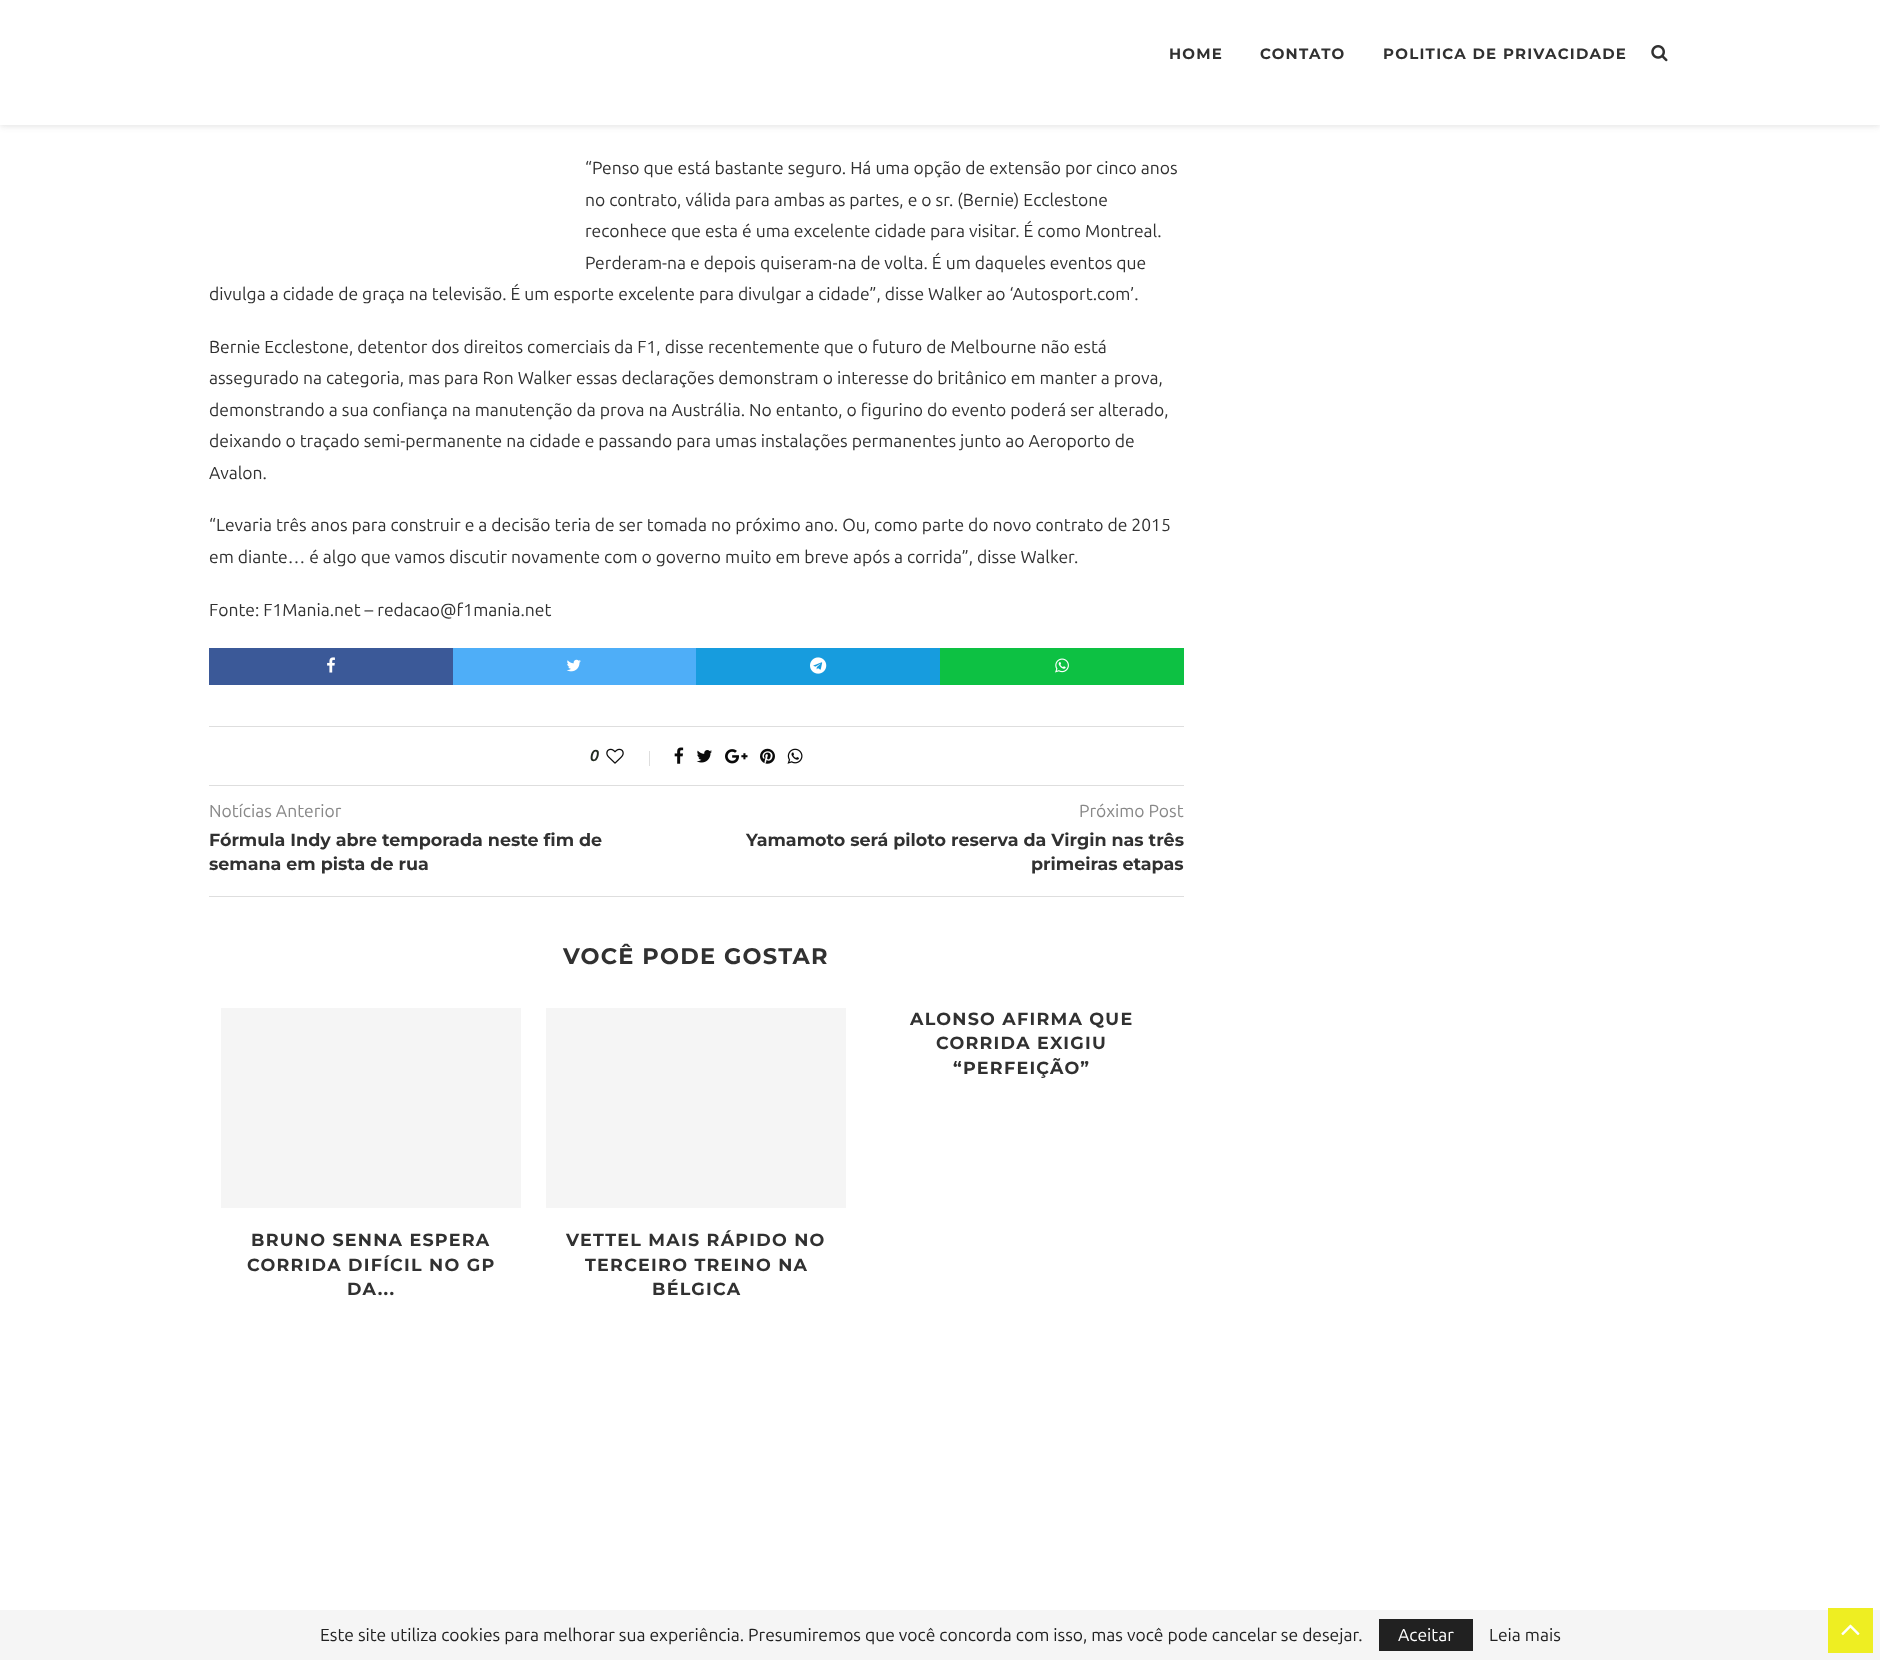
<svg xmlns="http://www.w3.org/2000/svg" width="1880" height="1660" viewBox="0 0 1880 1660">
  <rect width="100%" height="100%" fill="#fff"/>
  <path d="M0 1h1880v125H0z" fill="#bebebe75" filter="blur(3px)"/>
  <path d="M0 0h1880v125H0z" fill="#fff"/>
  <image x="1651" y="45" width="17" height="17" href="img/1.png"/>
  <path d="M209 648h244v37H209z" fill="#3b5998"/>
  <image x="327" y="657" width="8" height="16" href="img/2.png"/>
  <path d="M453 648h243v37H453z" fill="#4eaef8"/>
  <image x="566" y="659" width="15" height="13" href="img/3.png"/>
  <path d="M696 648h244v37H696z" fill="#179cde"/>
  <image x="810" y="657" width="17" height="17" href="img/4.png"/>
  <path d="M940 648h244v37H940z" fill="#0dc143"/>
  <image x="1055" y="658" width="14" height="15" href="img/5.png"/>
  <path d="M209 726h975v1H209z" fill="#dedede"/>
  <image x="606" y="748" width="18" height="16" href="img/6.png"/>
  <path d="M649 751h1v15H649z" fill="#dedede"/>
  <image x="674" y="747" width="10" height="17" href="img/7.png"/>
  <image x="696" y="750" width="16" height="13" href="img/8.png"/>
  <image x="725" y="749" width="23" height="15" href="img/9.png"/>
  <image x="760" y="748" width="15" height="16" href="img/10.png"/>
  <image x="787" y="748" width="16" height="16" href="img/11.png"/>
  <path d="M209 785h975v1H209z" fill="#dedede"/>
  <path d="M209 896h975v1H209z" fill="#dedede"/>
  <path d="M221 1008h300v200H221z" fill="#f5f5f5"/>
  <path d="M546 1008h300v200H546z" fill="#f5f5f5"/>
  <path d="M0 1610h1880v50H0z" fill="#f5f5f5"/>
  <path d="M1828 1608h45v45H1828z" fill="#ee2"/>
  <image x="1841" y="1624" width="19" height="12" href="img/12.png"/>
  <path d="M1379 1619h94v32H1379z" fill="#212121"/>
  <g font-family="Montserrat" font-size="15" font-weight="bold" letter-spacing="1.25" fill="#313131">
    <text x="1169" y="59">HOME</text>
    <text x="1260" y="59">CONTATO</text>
    <text x="1383" y="59">POLITICA DE PRIVACIDADE</text>
  </g>
  <g font-family="Ubuntu" font-size="17.5" fill="#313131">
    <text x="585" y="174">“Penso que está bastante seguro. Há uma opção de extensão por cinco anos</text>
    <text x="585" y="206">no contrato, válida para ambas as partes, e o sr. (Bernie) Ecclestone</text>
    <text x="585" y="237">reconhece que esta é uma excelente cidade para visitar. É como Montreal.</text>
    <text x="585" y="269">Perderam-na e depois quiseram-na de volta. É um daqueles eventos que</text>
    <text x="209" y="300">divulga a cidade de graça na televisão. É um esporte excelente para divulgar a cidade”, disse Walker ao ‘Autosport.com’.</text>
    <text x="209" y="353">Bernie Ecclestone, detentor dos direitos comerciais da F1, disse recentemente que o futuro de Melbourne não está</text>
    <text x="209" y="384">assegurado na categoria, mas para Ron Walker essas declarações demonstram o interesse do britânico em manter a prova,</text>
    <text x="209" y="416">demonstrando a sua confiança na manutenção da prova na Austrália. No entanto, o figurino do evento poderá ser alterado,</text>
    <text x="209" y="447">deixando o traçado semi-permanente na cidade e passando para umas instalações permanentes junto ao Aeroporto de</text>
    <text x="209" y="479">Avalon.</text>
    <text x="209" y="531">“Levaria três anos para construir e a decisão teria de ser tomada no próximo ano. Ou, como parte do novo contrato de 2015</text>
    <text x="209" y="563">em diante… é algo que vamos discutir novamente com o governo muito em breve após a corrida”, disse Walker.</text>
    <text x="209" y="616">Fonte: F1Mania.net – redacao@f1mania.net</text>
  </g>
  <text x="590" y="761" font-family="Ubuntu" font-size="16" font-weight="bold" font-style="italic" fill="#212b20">0</text>
  <text x="209" y="817" font-family="Ubuntu" font-size="17.5" fill="#888">Notícias Anterior</text>
  <g font-family="Montserrat" font-size="17.5" font-weight="bold" fill="#313131">
    <text x="209" y="846">Fórmula Indy abre temporada neste fim de</text>
    <text x="209" y="870">semana em pista de rua</text>
  </g>
  <text x="1079" y="817" font-family="Ubuntu" font-size="17.5" fill="#888">Próximo Post</text>
  <g font-family="Montserrat" font-size="17.5" font-weight="bold" fill="#313131">
    <text x="746" y="846">Yamamoto será piloto reserva da Virgin nas três</text>
    <text x="1031" y="870">primeiras etapas</text>
  </g>
  <text x="563" y="964" font-family="Montserrat" font-size="22.5" font-weight="bold" letter-spacing="1.25" fill="#313131">VOCÊ PODE GOSTAR</text>
  <g font-family="Montserrat" font-size="17.5" font-weight="bold" letter-spacing="1.25" fill="#313131">
    <text x="910" y="1025">ALONSO AFIRMA QUE</text>
    <text x="936" y="1049">CORRIDA EXIGIU</text>
    <text x="953" y="1074">“PERFEIÇÃO”</text>
    <text x="251" y="1246">BRUNO SENNA ESPERA</text>
    <text x="247" y="1271">CORRIDA DIFÍCIL NO GP</text>
    <text x="347" y="1295">DA...</text>
    <text x="566" y="1246">VETTEL MAIS RÁPIDO NO</text>
    <text x="585" y="1271">TERCEIRO TREINO NA</text>
    <text x="652" y="1295">BÉLGICA</text>
  </g>
  <text x="320" y="1641" font-family="Ubuntu" font-size="17.5" fill="#212121">Este site utiliza cookies para melhorar sua experiência. Presumiremos que você concorda com isso, mas você pode cancelar se desejar.</text>
  <text x="1398" y="1641" font-family="Ubuntu" font-size="17.5" fill="#fff">Aceitar</text>
  <text x="1489" y="1641" font-family="Ubuntu" font-size="17.5" fill="#212121">Leia mais</text>
</svg>
